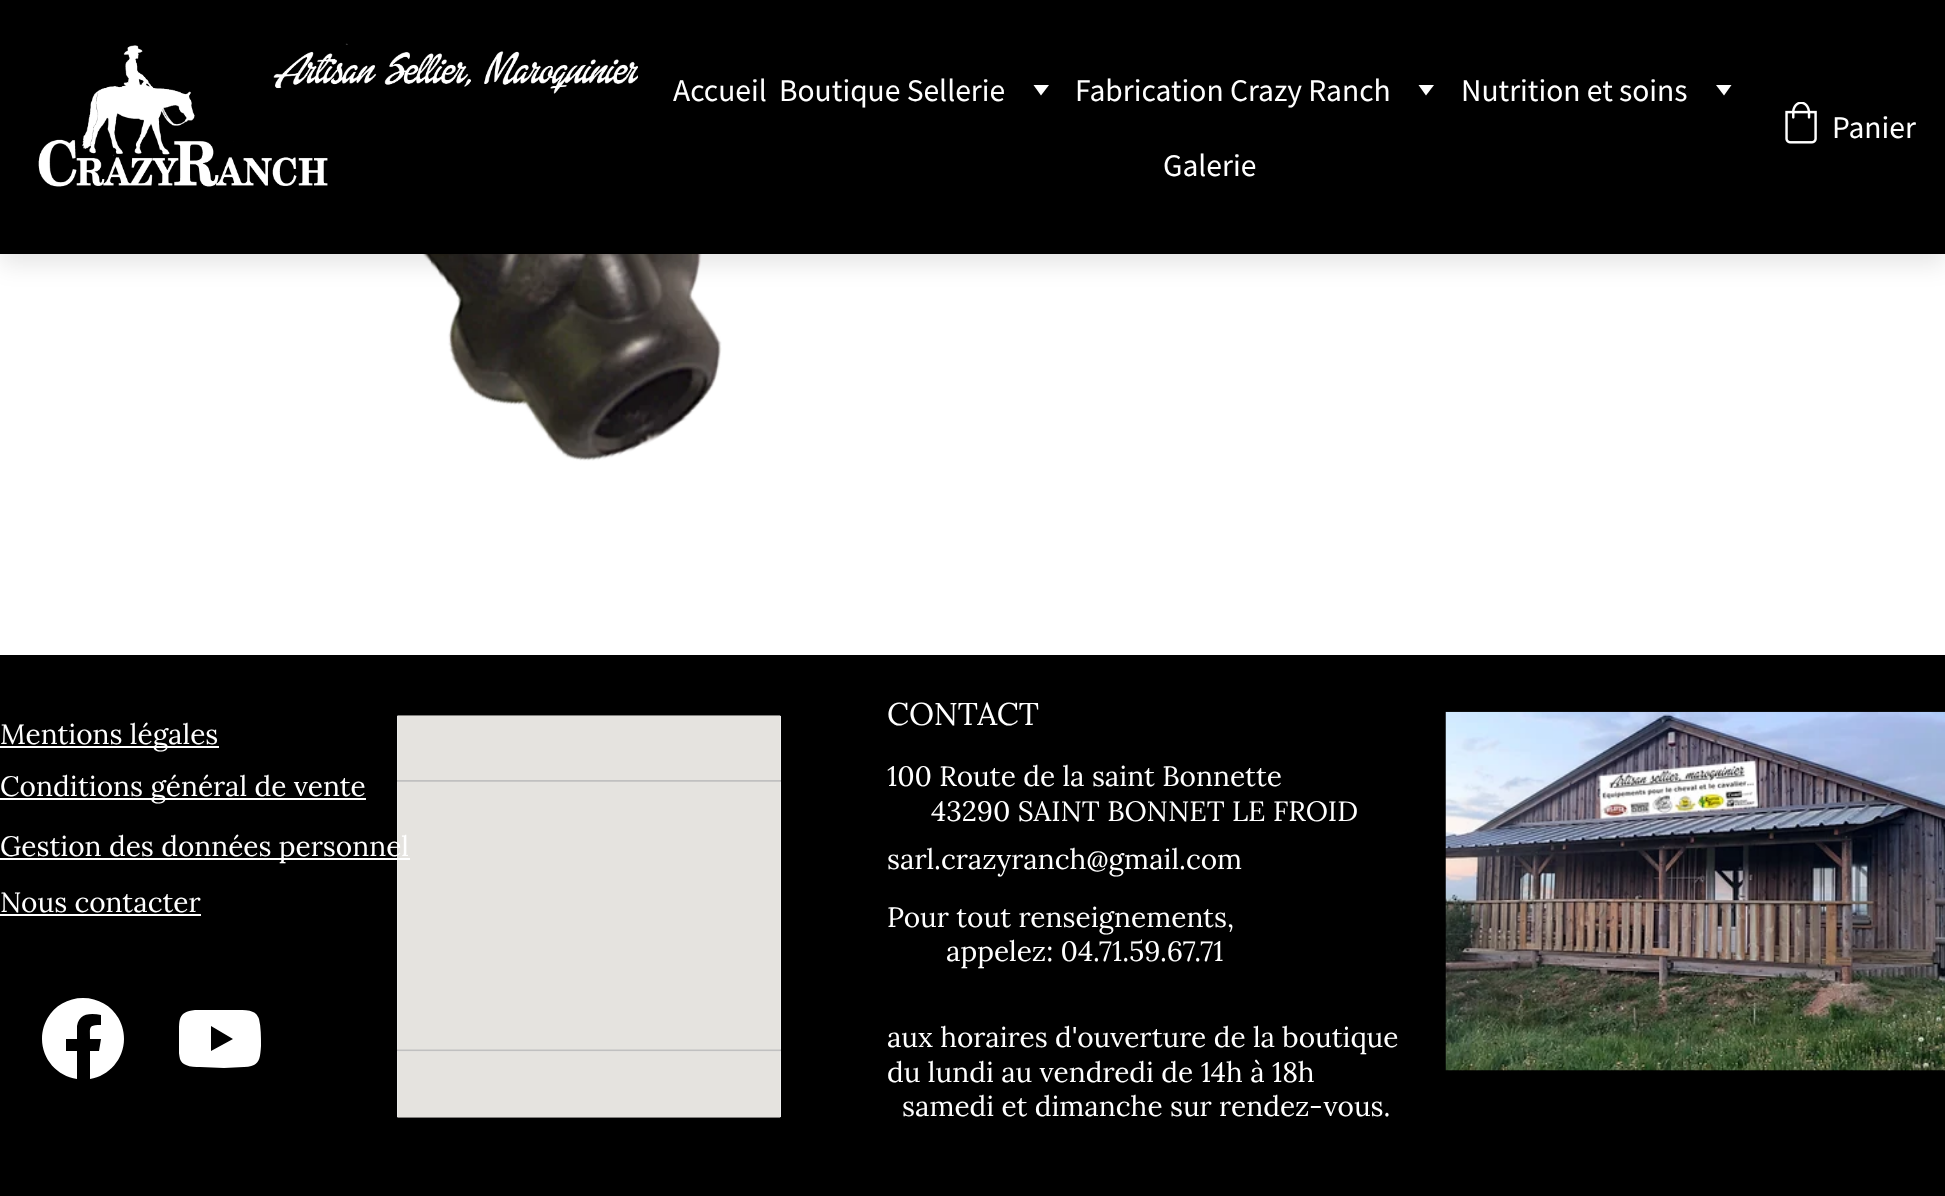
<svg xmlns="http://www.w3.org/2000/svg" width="1945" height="1196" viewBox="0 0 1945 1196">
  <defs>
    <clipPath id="clip1"><path d="M179 998h82v82H179z"/></clipPath>
  </defs>
  <rect width="100%" height="100%" fill="#fff"/>
  <image x="422" y="254" width="300" height="207" href="img/3.png"/>
  <path d="M0 11h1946v253H0z" fill="#0000001a" filter="blur(12px)"/>
  <path d="M0 0h1945v254H0z" fill="#000"/>
  <image x="38" y="43" width="600" height="144" href="img/1.png"/>
  <path d="M1041 95.5L1033.5 85H1049Z" fill="#fff"/>
  <path d="M1426 95.5L1418.5 85H1434Z" fill="#fff"/>
  <path d="M1724 95.5L1716 85H1731.5Z" fill="#fff"/>
  <image x="1785" y="102" width="32" height="42" href="img/2.png"/>
  <path d="M0 655h1945v541H0z" fill="#000"/>
  <path d="M0 746h219v2H0z" fill="#fff"/>
  <path d="M397 716h384v401H397z" fill="#f2f3f6"/>
  <image x="397" y="715" width="384" height="403" href="img/4.png"/>
  <image x="1445" y="711" width="500" height="360" href="img/5.png"/>
  <path d="M0 798h366v2H0z" fill="#fff"/>
  <path d="M0 858h410v2H0z" fill="#fff"/>
  <path d="M0 914h201v2H0z" fill="#fff"/>
  <path d="M124 1039C124 1016 106 998 83 998C60 998 42 1016 42 1039C42 1059 57 1076 77 1079V1051H66V1039H77V1026C79 1013 91 1013 101 1015V1025C88 1025 90 1027 90 1039H101L99 1051H90V1079C109 1076 124 1059 124 1039Z" fill="#fff"/>
  <g clip-path="url(#clip1)">
    <path d="M259 1019C258 1016 256 1013 253 1012C249 1010 243 1010 239 1010H219H195C180 1012 179 1017 179 1031C178 1040 178 1050 180 1059C181 1062 183 1064 186 1065C190 1067 196 1067 200 1067L224 1068L244 1067C259 1066 260 1061 261 1046C261 1037 261 1027 259 1019ZM211 1051V1026L233 1039Z" fill="#fff"/>
  </g>
  <g font-family="Source Sans Pro" font-size="31.5" fill="#fff">
    <text x="673" y="101">Accueil</text>
    <text x="779" y="101">Boutique Sellerie</text>
    <text x="1075" y="101">Fabrication Crazy Ranch</text>
    <text x="1461" y="101">Nutrition et soins</text>
    <text x="1163" y="176">Galerie</text>
    <text x="1832" y="138">Panier</text>
  </g>
  <text x="0" y="744" font-family="Lora" font-size="28" fill="#fff">Mentions légales</text>
  <text x="887" y="725" font-family="Lora" font-size="31.5" fill="#fff">CONTACT</text>
  <g font-family="Lora" font-size="28" fill="#fff">
    <text x="887" y="786">100 Route de la saint Bonnette</text>
    <text x="931" y="821">43290 SAINT BONNET LE FROID</text>
    <text x="887" y="869">sarl.crazyranch@gmail.com</text>
    <text x="887" y="927">Pour tout renseignements,</text>
    <text x="946" y="961">appelez: 04.71.59.67.71</text>
    <text x="887" y="1047">aux horaires d'ouverture de la boutique</text>
    <text x="887" y="1082">du lundi au vendredi de 14h à 18h</text>
    <text x="902" y="1116">samedi et dimanche sur rendez-vous.</text>
    <text x="0" y="796">Conditions général de vente</text>
    <text x="0" y="856">Gestion des données personnel</text>
    <text x="0" y="912">Nous contacter</text>
  </g>
</svg>
